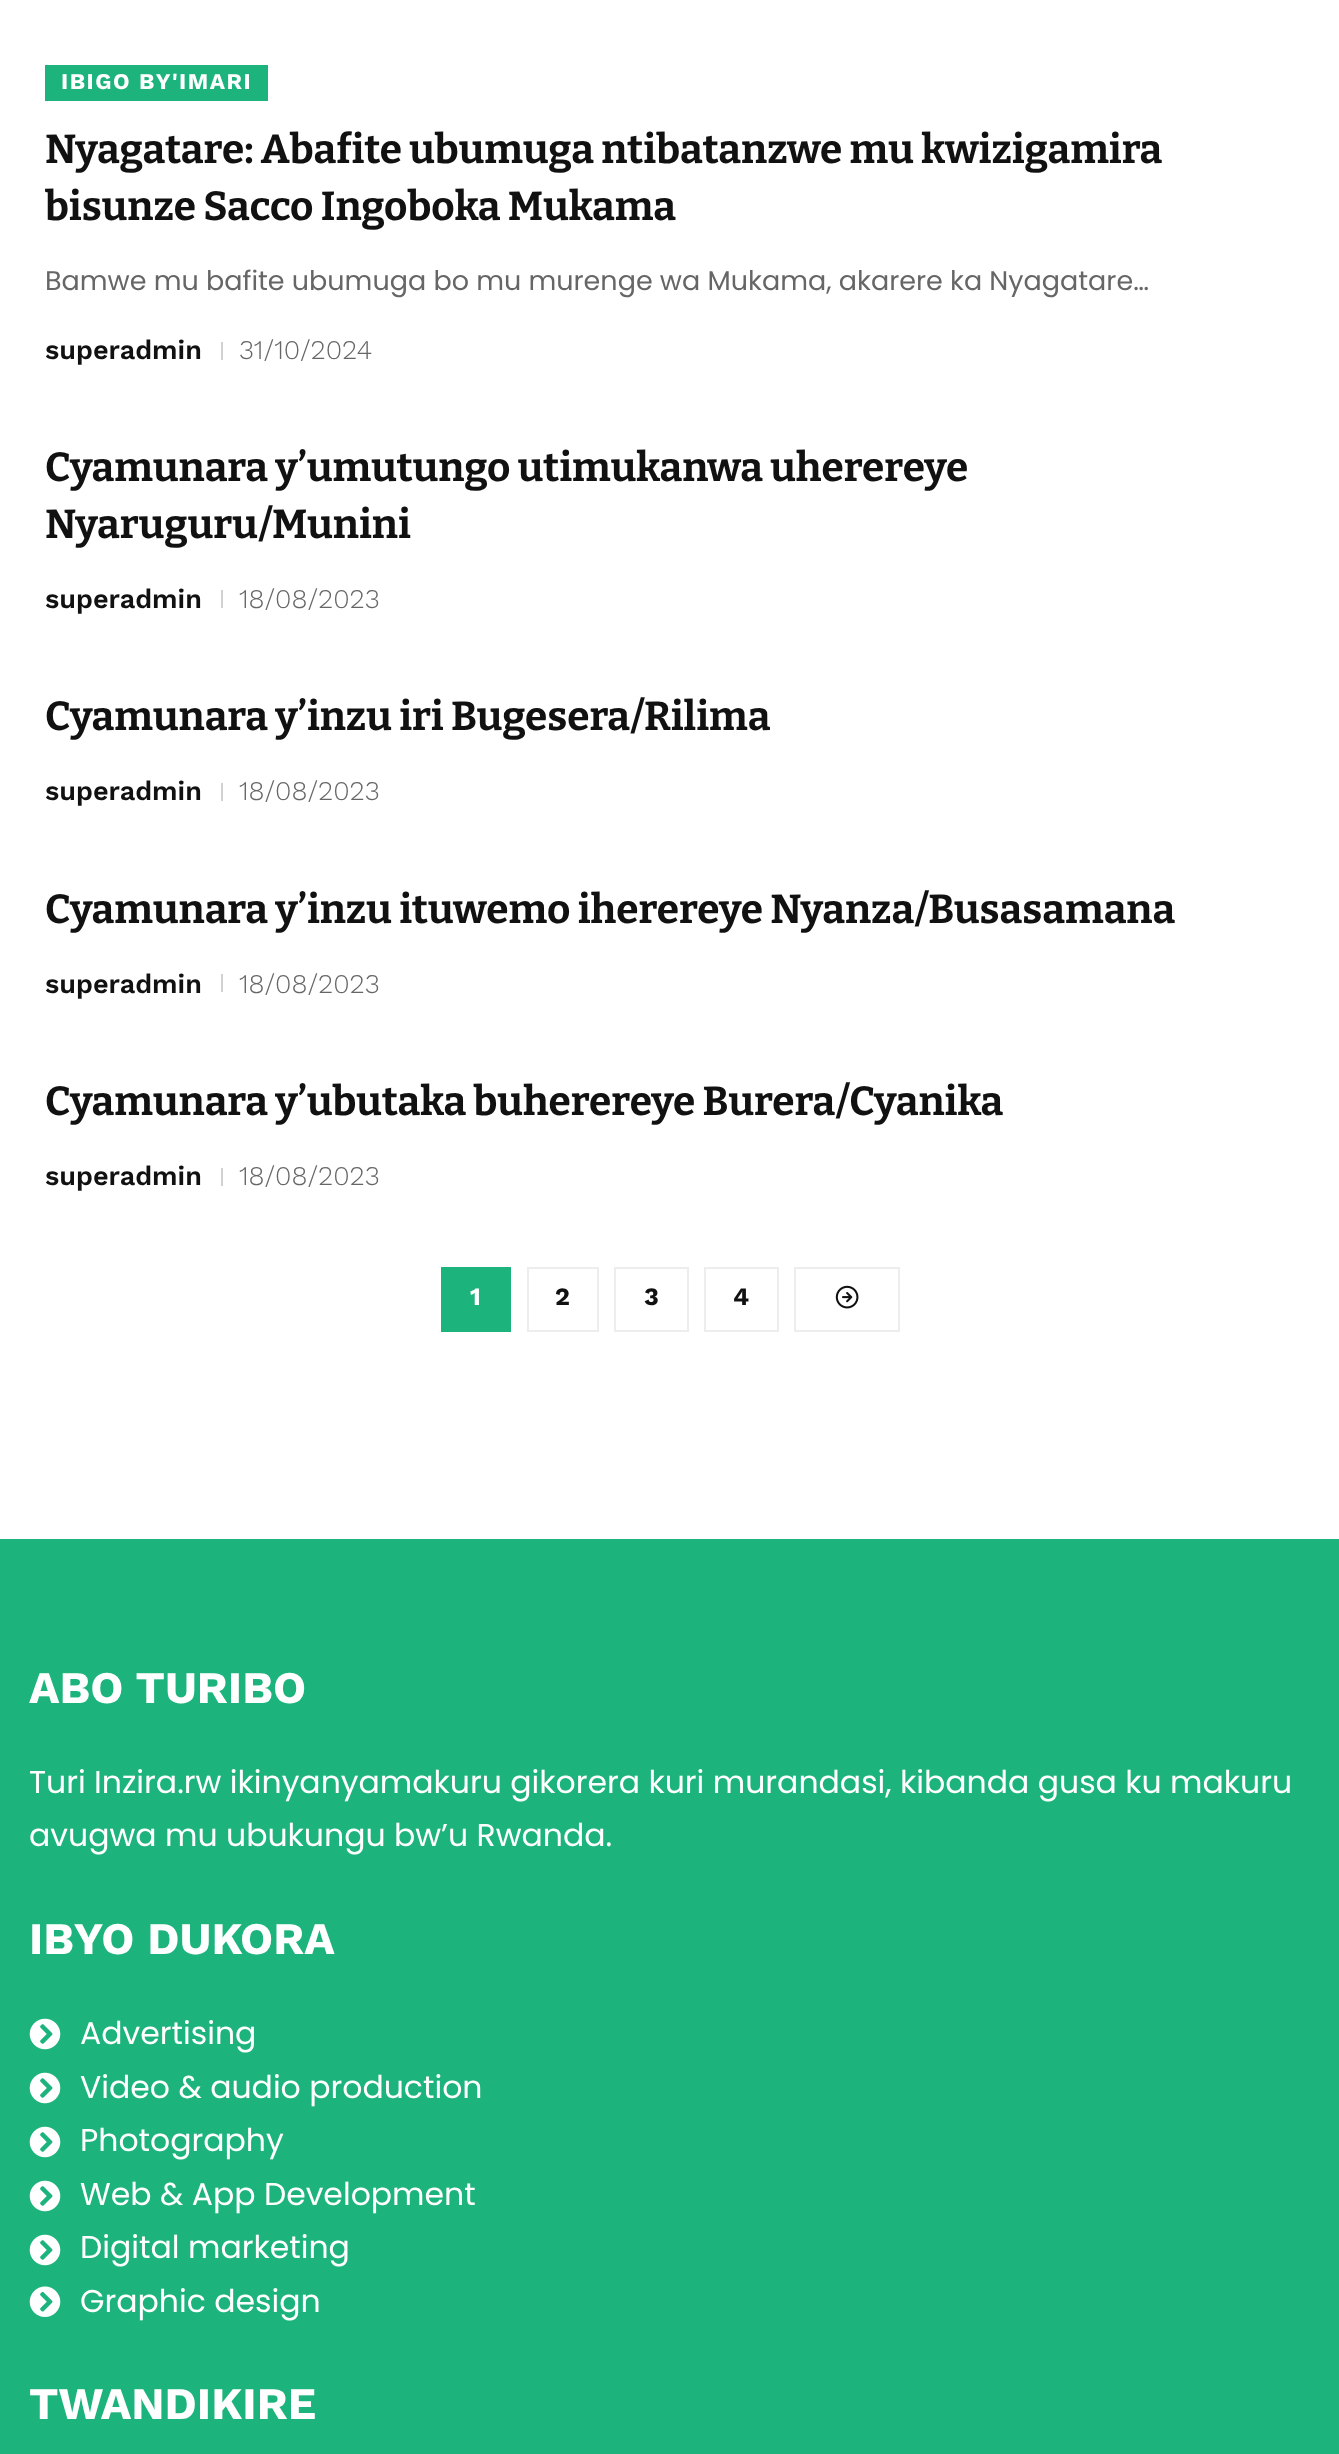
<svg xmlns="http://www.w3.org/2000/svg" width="1339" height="2454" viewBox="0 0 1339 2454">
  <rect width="100%" height="100%" fill="#fff"/>
  <path d="M45 65h223v36H45z" fill="#1cb47c"/>
  <path d="M221 342h2v18H221z" fill="#d1d1d1"/>
  <path d="M221 590h2v18H221z" fill="#d1d1d1"/>
  <path d="M221 783h2v18H221z" fill="#d1d1d1"/>
  <path d="M221 974h2v18H221z" fill="#d1d1d1"/>
  <path d="M221 1168h2v18H221z" fill="#d1d1d1"/>
  <path d="M441 1267h70v65H441z" fill="#1cb47c"/>
  <path d="M528 1268h70v63H528z" fill="none" stroke="#ededed" stroke-width="2"/>
  <path d="M615 1268h73v63H615z" fill="none" stroke="#ededed" stroke-width="2"/>
  <path d="M705 1268h73v63H705z" fill="none" stroke="#ededed" stroke-width="2"/>
  <path d="M795 1268h104v63H795z" fill="none" stroke="#ededed" stroke-width="2"/>
  <image x="835" y="1285" width="24" height="24" href="img/1.png"/>
  <path d="M0 1539h1339v915H0z" fill="#1cb47c"/>
  <image x="29" y="2018" width="32" height="32" href="img/2.png"/>
  <image x="29" y="2072" width="32" height="32" href="img/2.png"/>
  <image x="29" y="2126" width="32" height="32" href="img/2.png"/>
  <image x="29" y="2180" width="32" height="32" href="img/2.png"/>
  <image x="29" y="2234" width="32" height="32" href="img/2.png"/>
  <image x="29" y="2286" width="32" height="31" href="img/3.png"/>
  <text x="61" y="89" font-family="Work Sans" font-size="22.5" font-weight="bold" letter-spacing="1.5" fill="#fff">IBIGO BY'IMARI</text>
  <g font-family="Bitter" font-size="40.5" font-weight="bold" fill="#111">
    <text x="45" y="163">Nyagatare: Abafite ubumuga ntibatanzwe mu kwizigamira</text>
    <text x="45" y="220">bisunze Sacco Ingoboka Mukama</text>
  </g>
  <text x="45" y="290" font-family="Poppins" font-size="27" fill="#666">Bamwe mu bafite ubumuga bo mu murenge wa Mukama, akarere ka Nyagatare…</text>
  <text x="45" y="359" font-family="Work Sans" font-size="27" font-weight="600" fill="#111">superadmin</text>
  <text x="239" y="359" font-family="Work Sans" font-size="27" font-weight="300" fill="#666">31/10/2024</text>
  <g font-family="Bitter" font-size="40.5" font-weight="bold" fill="#111">
    <text x="45" y="481">Cyamunara y’umutungo utimukanwa uherereye</text>
    <text x="45" y="538">Nyaruguru/Munini</text>
  </g>
  <text x="45" y="608" font-family="Work Sans" font-size="27" font-weight="600" fill="#111">superadmin</text>
  <text x="239" y="608" font-family="Work Sans" font-size="27" font-weight="300" fill="#666">18/08/2023</text>
  <text x="45" y="730" font-family="Bitter" font-size="40.5" font-weight="bold" fill="#111">Cyamunara y’inzu iri Bugesera/Rilima</text>
  <text x="45" y="800" font-family="Work Sans" font-size="27" font-weight="600" fill="#111">superadmin</text>
  <text x="239" y="800" font-family="Work Sans" font-size="27" font-weight="300" fill="#666">18/08/2023</text>
  <text x="45" y="923" font-family="Bitter" font-size="40.5" font-weight="bold" fill="#111">Cyamunara y’inzu ituwemo iherereye Nyanza/Busasamana</text>
  <text x="45" y="993" font-family="Work Sans" font-size="27" font-weight="600" fill="#111">superadmin</text>
  <text x="239" y="993" font-family="Work Sans" font-size="27" font-weight="300" fill="#666">18/08/2023</text>
  <text x="45" y="1115" font-family="Bitter" font-size="40.5" font-weight="bold" fill="#111">Cyamunara y’ubutaka buherereye Burera/Cyanika</text>
  <text x="45" y="1185" font-family="Work Sans" font-size="27" font-weight="600" fill="#111">superadmin</text>
  <text x="239" y="1185" font-family="Work Sans" font-size="27" font-weight="300" fill="#666">18/08/2023</text>
  <text x="470" y="1305" font-family="Work Sans" font-size="25" font-weight="bold" fill="#fff">1</text>
  <g font-family="Work Sans" font-size="25" font-weight="bold" fill="#111">
    <text x="555" y="1305">2</text>
    <text x="644" y="1305">3</text>
    <text x="733" y="1305">4</text>
  </g>
  <text x="29" y="1703" font-family="Work Sans" font-size="45" font-weight="bold" fill="#fff">ABO TURIBO</text>
  <g font-family="Poppins" font-size="31.5" fill="#fff">
    <text x="29" y="1793">Turi Inzira.rw ikinyanyamakuru gikorera kuri murandasi, kibanda gusa ku makuru</text>
    <text x="29" y="1846">avugwa mu ubukungu bw’u Rwanda.</text>
  </g>
  <text x="29" y="1954" font-family="Work Sans" font-size="45" font-weight="bold" fill="#fff">IBYO DUKORA</text>
  <g font-family="Poppins" font-size="31.5" fill="#fff">
    <text x="80" y="2044">Advertising</text>
    <text x="80" y="2098">Video &amp; audio production</text>
    <text x="80" y="2151">Photography</text>
    <text x="80" y="2205">Web &amp; App Development</text>
    <text x="80" y="2258">Digital marketing</text>
    <text x="80" y="2312">Graphic design</text>
  </g>
  <text x="29" y="2419" font-family="Work Sans" font-size="45" font-weight="bold" fill="#fff">TWANDIKIRE</text>
</svg>
